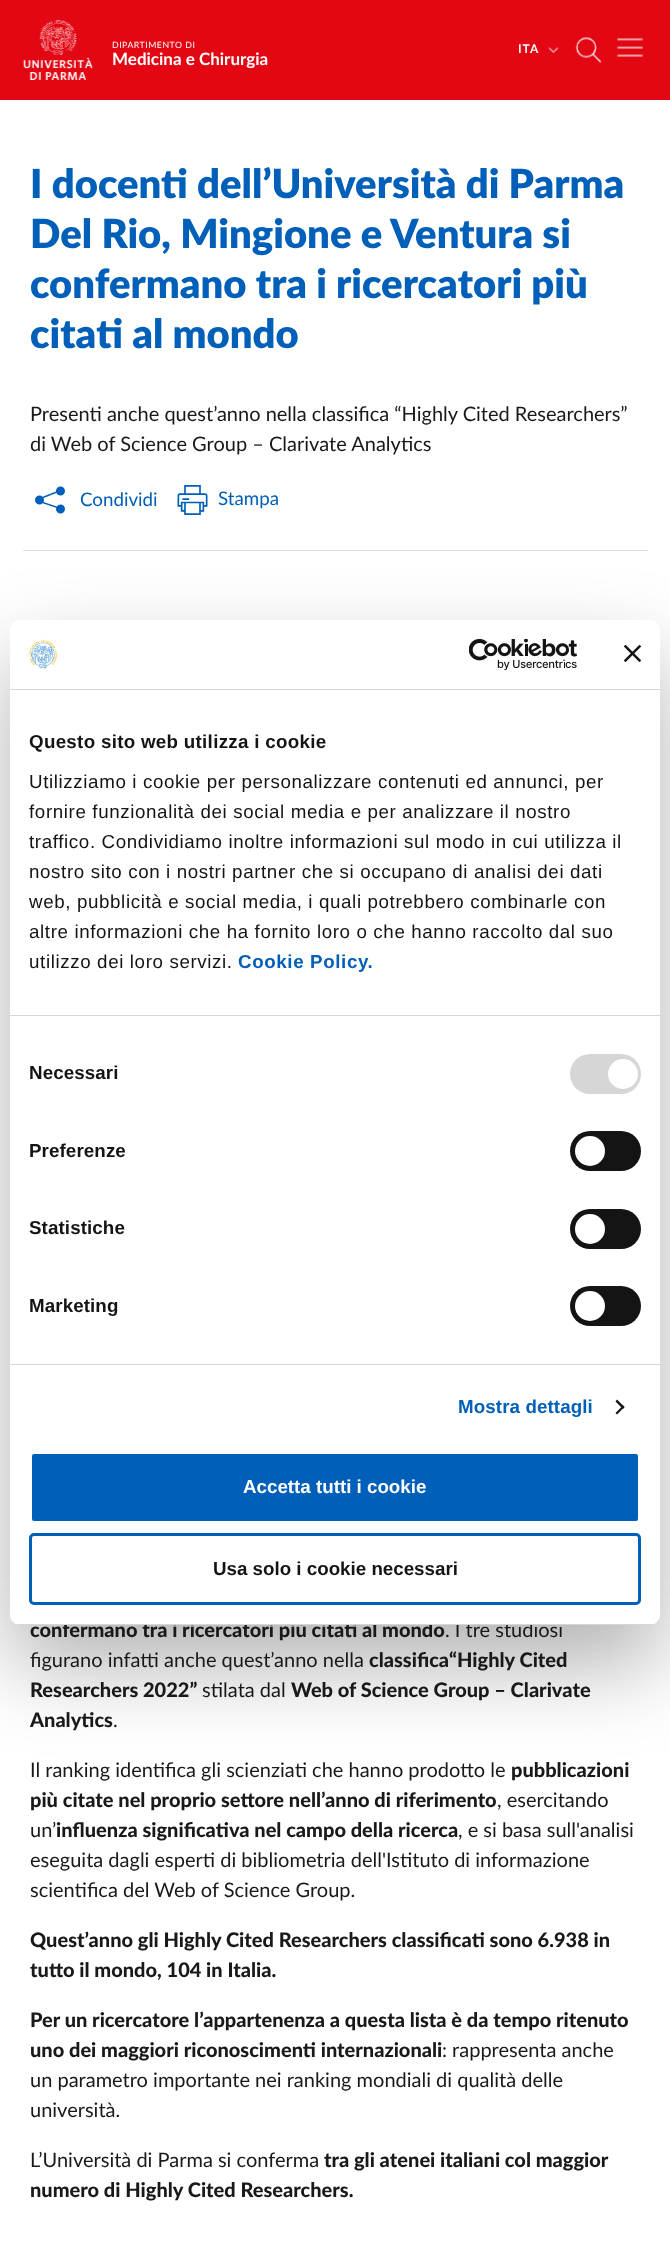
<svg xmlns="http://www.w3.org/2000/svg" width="670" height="2243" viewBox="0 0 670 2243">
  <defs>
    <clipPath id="clip1"><rect x="10" y="620" width="650" height="1005" rx="10"/></clipPath>
  </defs>
  <rect width="100%" height="100%" fill="#fff"/>
  <path d="M0 0h670v100H0z" fill="#e30613"/>
  <image x="23" y="20" width="70" height="60" href="img/1.png"/>
  <image x="548" y="47" width="11" height="7" href="img/2.png"/>
  <image x="575" y="37" width="27" height="26" href="img/3.png"/>
  <image x="616" y="38" width="27" height="19" href="img/4.png"/>
  <image x="35" y="486" width="30" height="28" href="img/5.png"/>
  <image x="177" y="485" width="31" height="30" href="img/6.png"/>
  <path d="M23 550h625v1H23z" fill="#dedede"/>
  <rect x="10" y="660" width="650" height="1005" rx="10" fill="#0000004d" filter="blur(42.5px)"/>
  <text x="112" y="48" font-family="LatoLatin" font-size="8.75" letter-spacing="0.5" fill="#fff">DIPARTIMENTO DI</text>
  <text x="112" y="65" font-family="LatoLatin" font-size="17" font-weight="bold" fill="#fff">Medicina e Chirurgia</text>
  <text x="518" y="53" font-family="LatoLatin" font-size="12" font-weight="bold" letter-spacing="1" fill="#fff">ITA</text>
  <g font-family="'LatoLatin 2'" font-size="40" font-weight="900" fill="#005fb8">
    <text x="30" y="198">I docenti dell’Università di Parma</text>
    <text x="30" y="248">Del Rio, Mingione e Ventura si</text>
    <text x="30" y="298">confermano tra i ricercatori più</text>
    <text x="30" y="348">citati al mondo</text>
  </g>
  <g font-family="LatoLatin" font-size="20" fill="#19191a">
    <text x="30" y="421">Presenti anche quest’anno nella classifica “Highly Cited Researchers”</text>
    <text x="30" y="451">di Web of Science Group – Clarivate Analytics</text>
  </g>
  <g font-family="LatoLatin" font-size="18.75" fill="#005fb8">
    <text x="80" y="506">Condividi</text>
    <text x="218" y="505">Stampa</text>
  </g>
  <text x="30" y="1637" font-family="LatoLatin" font-size="20" font-weight="900" fill="#19191a">confermano tra i ricercatori più citati al mondo</text>
  <g font-family="LatoLatin" font-size="20" fill="#19191a">
    <text x="445" y="1637">. I tre studiosi</text>
    <text x="30" y="1667">figurano infatti anche quest’anno nella</text>
  </g>
  <g font-family="LatoLatin" font-size="20" font-weight="900" fill="#19191a">
    <text x="369" y="1667">classifica“Highly Cited</text>
    <text x="30" y="1697">Researchers 2022”</text>
  </g>
  <text x="202" y="1697" font-family="LatoLatin" font-size="20" fill="#19191a">stilata dal</text>
  <g font-family="LatoLatin" font-size="20" font-weight="900" fill="#19191a">
    <text x="291" y="1697">Web of Science Group – Clarivate</text>
    <text x="30" y="1727">Analytics</text>
  </g>
  <g font-family="LatoLatin" font-size="20" fill="#19191a">
    <text x="113" y="1727">.</text>
    <text x="30" y="1777">Il ranking identifica gli scienziati che hanno prodotto le</text>
  </g>
  <g font-family="LatoLatin" font-size="20" font-weight="900" fill="#19191a">
    <text x="511" y="1777">pubblicazioni</text>
    <text x="30" y="1807">più citate nel proprio settore nell’anno di riferimento</text>
  </g>
  <g font-family="LatoLatin" font-size="20" fill="#19191a">
    <text x="497" y="1807">, esercitando</text>
    <text x="30" y="1837">un’</text>
  </g>
  <text x="56" y="1837" font-family="LatoLatin" font-size="20" font-weight="900" fill="#19191a">influenza significativa nel campo della ricerca</text>
  <g font-family="LatoLatin" font-size="20" fill="#19191a">
    <text x="458" y="1837">, e si basa sull'analisi</text>
    <text x="30" y="1867">eseguita dagli esperti di bibliometria dell'Istituto di informazione</text>
    <text x="30" y="1897">scientifica del Web of Science Group.</text>
  </g>
  <g font-family="LatoLatin" font-size="20" font-weight="900" fill="#19191a">
    <text x="30" y="1947">Quest’anno gli Highly Cited Researchers classificati sono 6.938 in</text>
    <text x="30" y="1977">tutto il mondo, 104 in Italia.</text>
    <text x="30" y="2027">Per un ricercatore l’appartenenza a questa lista è da tempo ritenuto</text>
    <text x="30" y="2057">uno dei maggiori riconoscimenti internazionali</text>
  </g>
  <g font-family="LatoLatin" font-size="20" fill="#19191a">
    <text x="442" y="2057">: rappresenta anche</text>
    <text x="30" y="2087">un parametro importante nei ranking mondiali di qualità delle</text>
    <text x="30" y="2117">università.</text>
    <text x="30" y="2167">L’Università di Parma si conferma</text>
  </g>
  <g font-family="LatoLatin" font-size="20" font-weight="900" fill="#19191a">
    <text x="324" y="2167">tra gli atenei italiani col maggior</text>
    <text x="30" y="2197">numero di Highly Cited Researchers.</text>
  </g>
  <rect x="10" y="620" width="650" height="1005" rx="10" fill="#fff"/>
  <path d="M10 689h650v1H10z" fill="#d6d6d6"/>
  <image x="28" y="639" width="30" height="30" href="img/7.png"/>
  <image x="469" y="639" width="108" height="31" href="img/8.png"/>
  <image x="624" y="645" width="17" height="18" href="img/9.png"/>
  <path d="M10 1015h650v1H10z" fill="#d6d6d6"/>
  <text x="29" y="748" font-family="Liberation Sans" font-size="18.75" font-weight="bold" letter-spacing="0.3" fill="#141414">Questo sito web utilizza i cookie</text>
  <g font-family="Liberation Sans" font-size="18.75" letter-spacing="0.62" fill="#141414">
    <text x="29" y="788">Utilizziamo i cookie per personalizzare contenuti ed annunci, per</text>
    <text x="29" y="818">fornire funzionalità dei social media e per analizzare il nostro</text>
    <text x="29" y="848">traffico. Condividiamo inoltre informazioni sul modo in cui utilizza il</text>
    <text x="29" y="878">nostro sito con i nostri partner che si occupano di analisi dei dati</text>
    <text x="29" y="908">web, pubblicità e social media, i quali potrebbero combinarle con</text>
    <text x="29" y="938">altre informazioni che ha fornito loro o che hanno raccolto dal suo</text>
    <text x="29" y="968">utilizzo dei loro servizi.</text>
  </g>
  <text x="238" y="968" font-family="Liberation Sans" font-size="18.75" font-weight="bold" letter-spacing="0.62" fill="#005fb8">Cookie Policy.</text>
  <path d="M10 1364h650v1H10z" fill="#d6d6d6"/>
  <text x="29" y="1079" font-family="Liberation Sans" font-size="18.75" font-weight="bold" letter-spacing="0.1" fill="#141414">Necessari</text>
  <rect x="570" y="1054" width="71" height="40" rx="20" fill="#d6d6d6"/>
  <circle cx="623" cy="1074" r="15" fill="#fff"/>
  <text x="29" y="1157" font-family="Liberation Sans" font-size="18.75" font-weight="bold" letter-spacing="0.1" fill="#141414">Preferenze</text>
  <rect x="570" y="1131" width="71" height="40" rx="20" fill="#141414"/>
  <circle cx="590" cy="1151" r="15" fill="#fff"/>
  <text x="29" y="1234" font-family="Liberation Sans" font-size="18.75" font-weight="bold" letter-spacing="0.1" fill="#141414">Statistiche</text>
  <rect x="570" y="1209" width="71" height="40" rx="20" fill="#141414"/>
  <circle cx="590" cy="1229" r="15" fill="#fff"/>
  <text x="29" y="1312" font-family="Liberation Sans" font-size="18.75" font-weight="bold" letter-spacing="0.1" fill="#141414">Marketing</text>
  <rect x="570" y="1286" width="71" height="40" rx="20" fill="#141414"/>
  <circle cx="590" cy="1306" r="15" fill="#fff"/>
  <text x="458" y="1413" font-family="Liberation Sans" font-size="18.75" font-weight="bold" letter-spacing="0.1" fill="#005fb8">Mostra dettagli</text>
  <path d="M617 1399.5L624.5 1407L623 1409L615.5 1401.5Z" fill="#141414"/>
  <path d="M623 1405.5L624.5 1407L617 1414.5L615.5 1413Z" fill="#141414"/>
  <g clip-path="url(#clip1)">
    <path d="M10 1624h650v1H10z" fill="#d6d6d6"/>
  </g>
  <rect x="30.5" y="1452.5" width="609" height="70" rx="3.5" fill="#005fb8" stroke="#fff" stroke-width="3"/>
  <text x="243" y="1493" font-family="Liberation Sans" font-size="18.75" font-weight="bold" fill="#fff">Accetta tutti i cookie</text>
  <rect x="30.5" y="1534.5" width="609" height="69" rx="3.5" fill="none" stroke="#005fb8" stroke-width="3"/>
  <text x="213" y="1575" font-family="Liberation Sans" font-size="18.75" font-weight="bold" fill="#141414">Usa solo i cookie necessari</text>
</svg>
